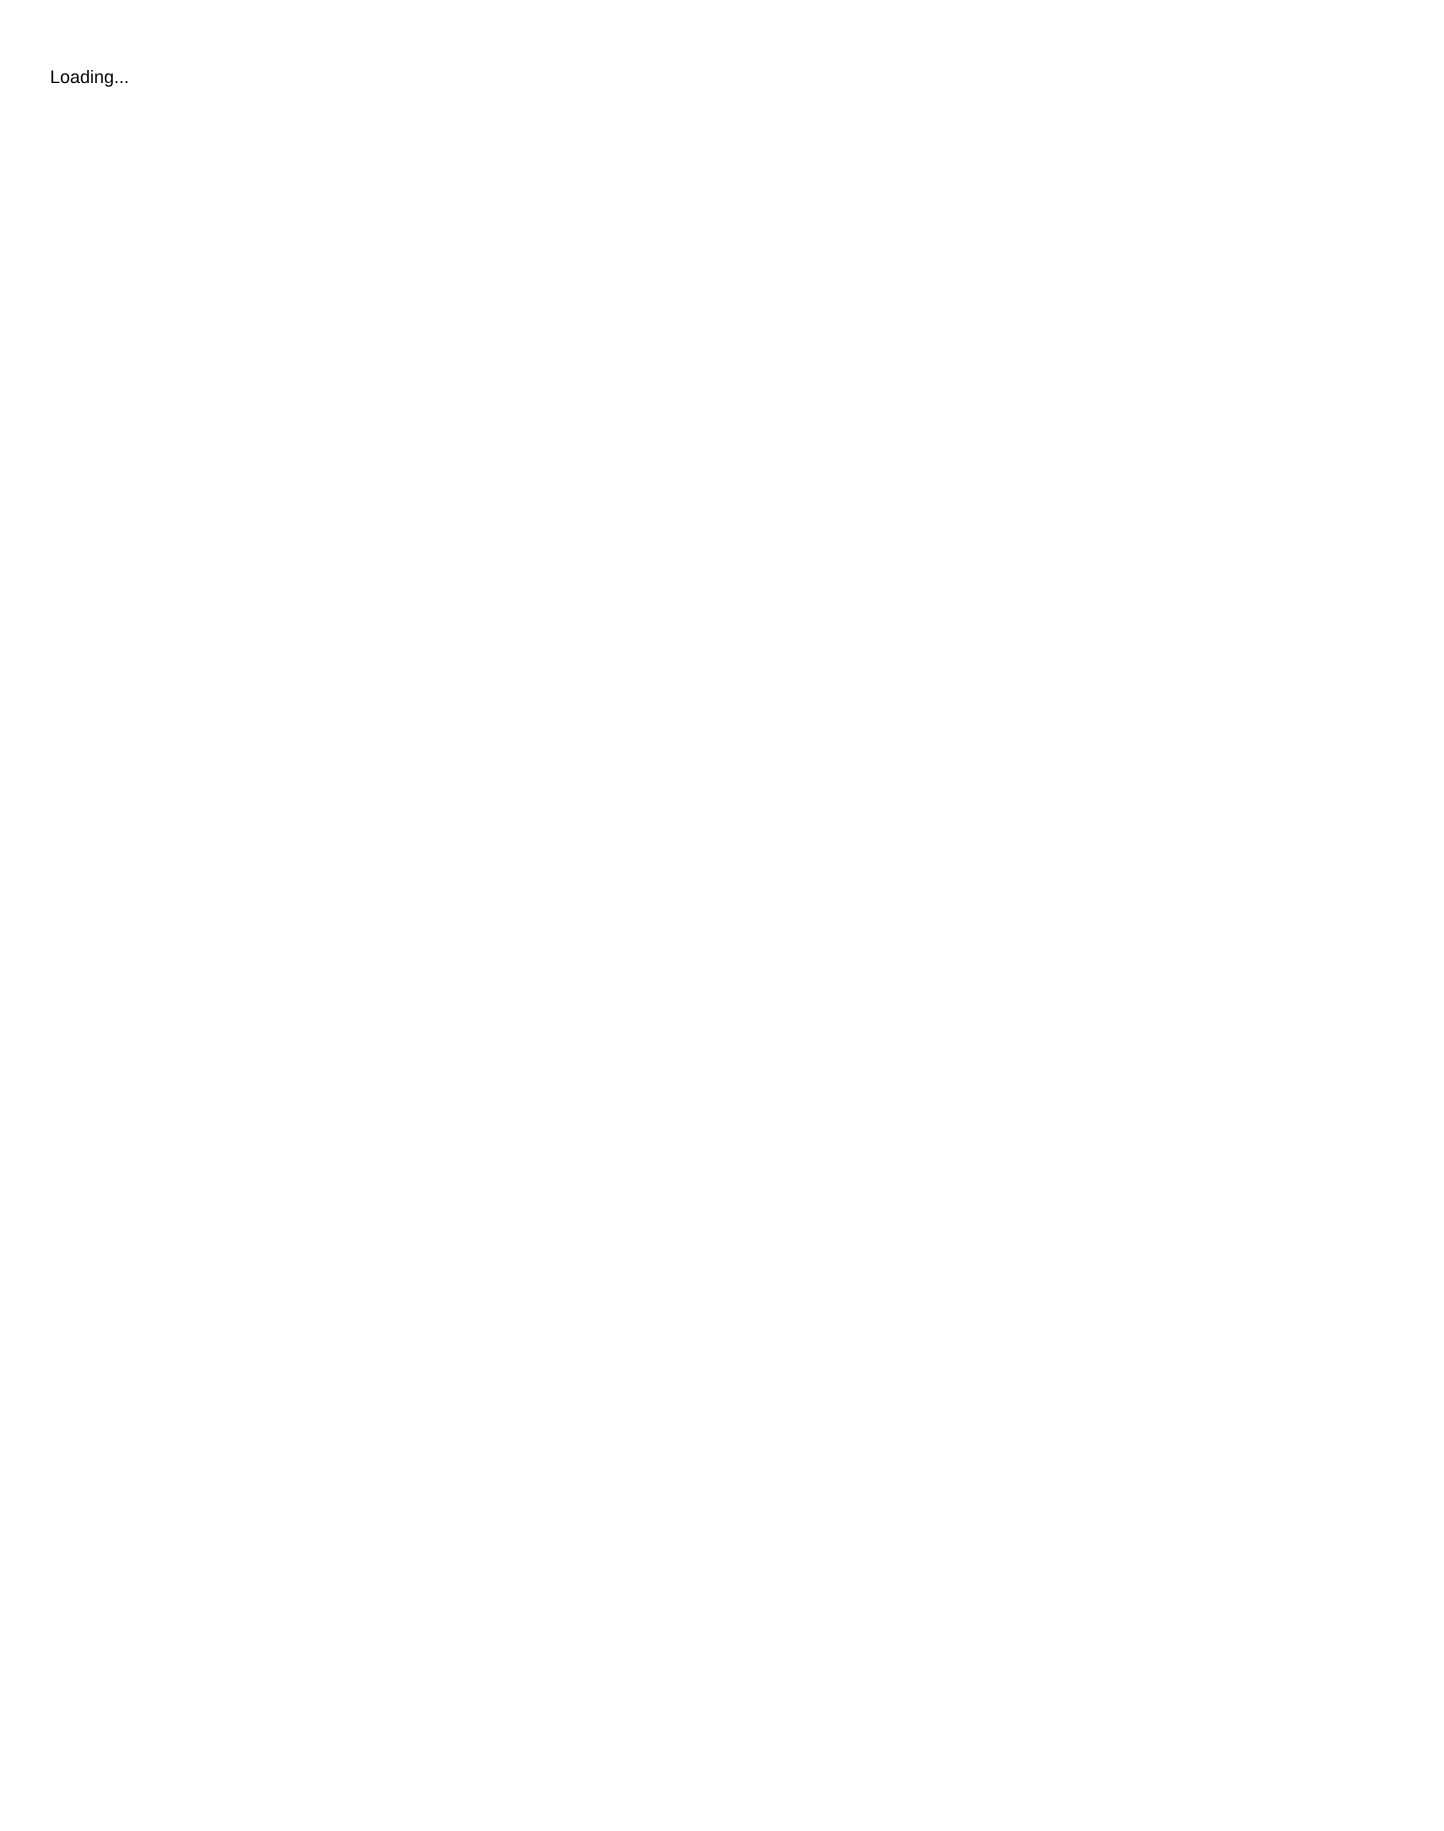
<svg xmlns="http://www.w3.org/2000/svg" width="1444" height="1831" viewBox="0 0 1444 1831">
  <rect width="100%" height="100%" fill="#fff"/>
  <text x="50" y="83" font-family="Liberation Sans" font-size="18" fill="#000">Loading...</text>
</svg>
